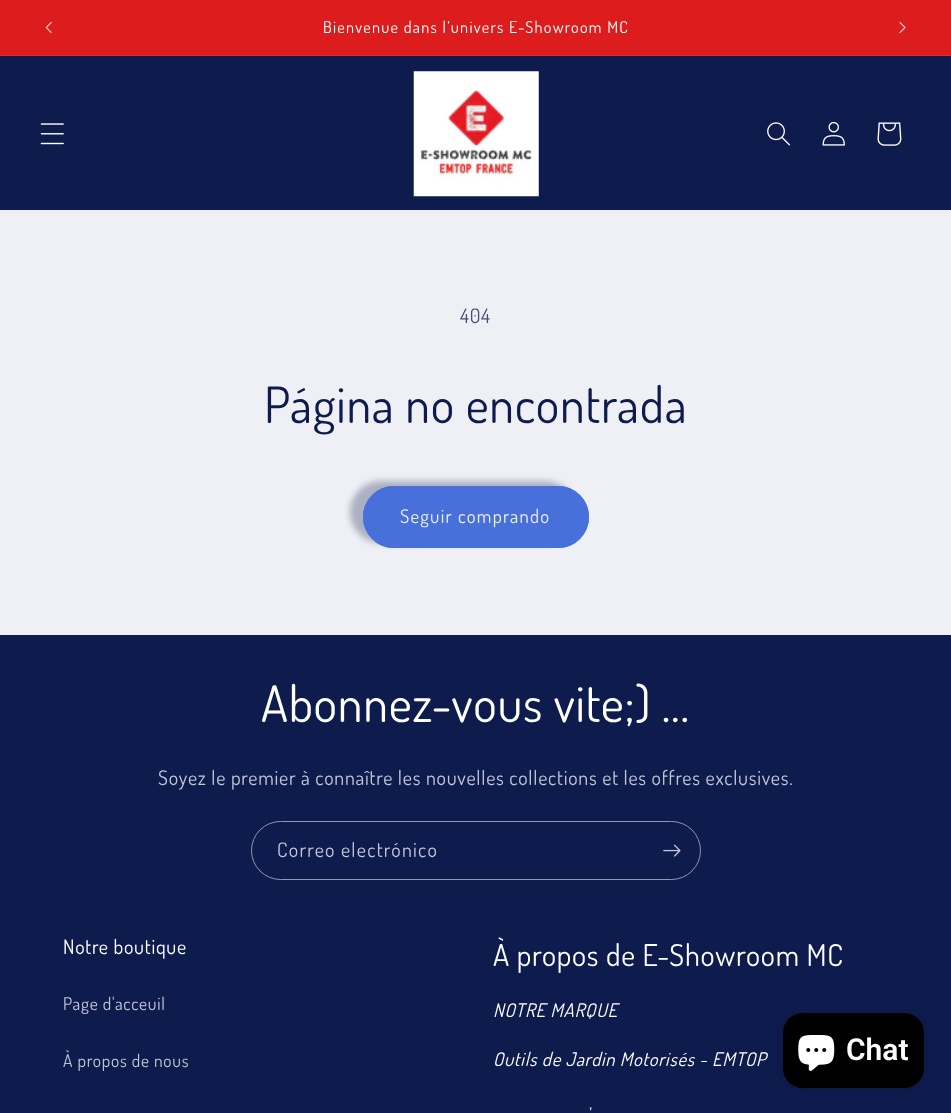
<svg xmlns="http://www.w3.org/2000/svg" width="951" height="1113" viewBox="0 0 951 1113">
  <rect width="100%" height="100%" fill="#eff0f5"/>
  <path d="M0 0h951v55H0z" fill="#dd1d1d"/>
  <path d="M0 55h951v1H0z" fill="#e02f2f"/>
  <image x="45" y="21" width="7" height="12" href="img/1.png"/>
  <image x="899" y="22" width="7" height="11" href="img/2.png"/>
  <path d="M0 56h951v154H0z" fill="#0e1b4d"/>
  <image x="40" y="123" width="24" height="22" href="img/3.png"/>
  <image x="413" y="71" width="126" height="126" href="img/4.png"/>
  <image x="767" y="122" width="23" height="24" href="img/5.png"/>
  <image x="822" y="121" width="23" height="25" href="img/6.png"/>
  <image x="877" y="122" width="25" height="24" href="img/7.png"/>
  <rect x="350" y="481" width="226" height="62" rx="31" fill="#0e1b4d4d" filter="blur(3px)"/>
  <rect x="363" y="486" width="226" height="62" rx="31" fill="#4770db"/>
  <rect x="364.5" y="487.5" width="223" height="59" rx="29.5" fill="none" stroke="#4770db" stroke-width="3"/>
  <path d="M0 635h951v478H0z" fill="#0e1b4d"/>
  <rect x="251.5" y="821.5" width="449" height="58" rx="29" fill="none" stroke="#9398af"/>
  <image x="663" y="844" width="18" height="13" href="img/8.png"/>
  <rect x="783" y="1013" width="141" height="75" rx="20" fill="#00000026" filter="blur(3px)"/>
  <rect x="783" y="1013" width="141" height="75" rx="20" fill="#000"/>
  <image x="798" y="1035" width="37" height="36" href="img/9.png"/>
  <text x="323" y="33" font-family="Dosis" font-size="16.25" letter-spacing="1.25" fill="#fff">Bienvenue dans l’univers E-Showroom MC</text>
  <text x="460" y="323" font-family="Dosis" font-size="20" letter-spacing="0.75" fill="#465077">404</text>
  <text x="264" y="423" font-family="Dosis" font-size="50" letter-spacing="0.75" fill="#0e1b4d">Página no encontrada</text>
  <text x="400" y="523" font-family="Dosis" font-size="18.75" letter-spacing="1.25" fill="#eff0f5">Seguir comprando</text>
  <text x="261" y="722" font-family="Dosis" font-size="50" letter-spacing="0.75" fill="#fff">Abonnez-vous vite;) ...</text>
  <text x="158" y="785" font-family="Dosis" font-size="20" letter-spacing="0.75" fill="#c3c6d3">Soyez le premier à connaître les nouvelles collections et les offres exclusives.</text>
  <text x="277" y="857" font-family="Dosis" font-size="20" letter-spacing="1.25" fill="#c3c6d3">Correo electrónico</text>
  <text x="63" y="954" font-family="Dosis" font-size="20" letter-spacing="0.75" fill="#fff">Notre boutique</text>
  <g font-family="Dosis" font-size="17.5" letter-spacing="0.75" fill="#c3c6d3">
    <text x="63" y="1010">Page d'acceuil</text>
    <text x="63" y="1067">À propos de nous</text>
  </g>
  <text x="493" y="966" font-family="Dosis" font-size="30" letter-spacing="0.75" fill="#fff">À propos de E-Showroom MC</text>
  <g font-family="Dosis" font-size="18.75" font-style="italic" letter-spacing="0.75" fill="#fff">
    <text x="493" y="1017">NOTRE MARQUE</text>
    <text x="493" y="1066">Outils de Jardin Motorisés - EMTOP</text>
  </g>
  <text x="589" y="1122" font-family="Dosis" font-size="20" letter-spacing="0.75" fill="#c3c6d3">’</text>
  <text x="846" y="1060" font-family="Roboto" font-size="30" font-weight="600" fill="#fff">Chat</text>
</svg>
